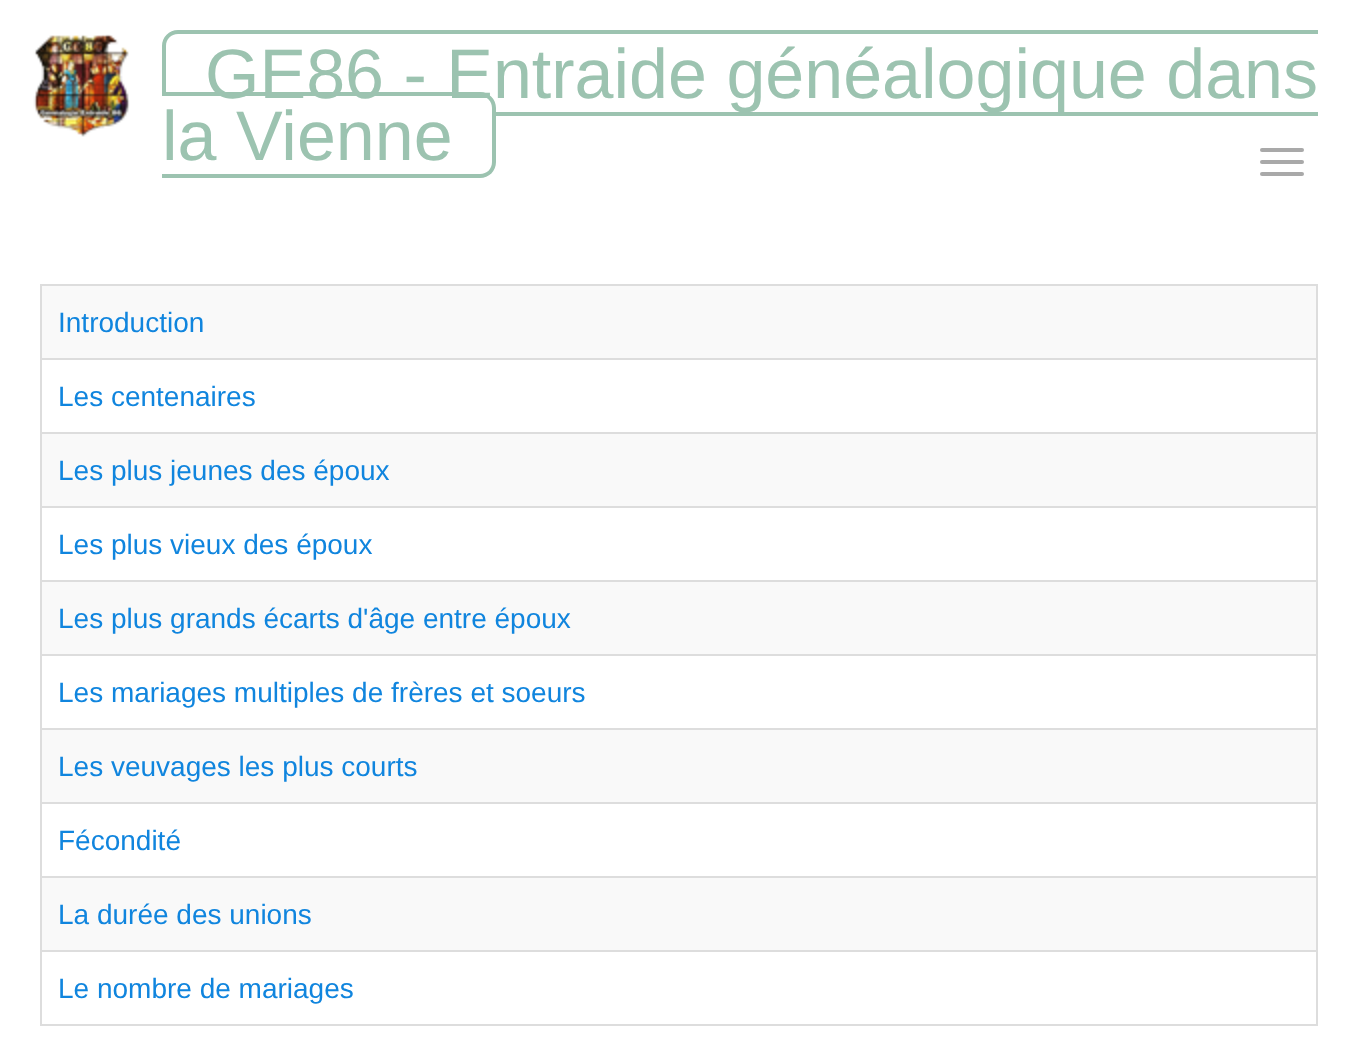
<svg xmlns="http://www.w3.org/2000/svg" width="1358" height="1060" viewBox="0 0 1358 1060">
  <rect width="100%" height="100%" fill="#fff"/>
  <image x="33" y="34" width="97" height="103" href="img/1.png"/>
  <path d="M178 30H1318V116H178C169 116 162 109 162 100V46C162 37 169 30 178 30ZM178 34H1318V112H178C171 112 166 107 166 100V46C166 39 171 34 178 34Z" fill="#9cc3b0" fill-rule="evenodd"/>
  <path d="M162 92H480C489 92 496 99 496 108V162C496 171 489 178 480 178H162Z" fill="#fff"/>
  <path d="M162 92H480C489 92 496 99 496 108V162C496 171 489 178 480 178H162ZM162 96H480C487 96 492 101 492 108V162C492 169 487 174 480 174H162Z" fill="#9cc3b0" fill-rule="evenodd"/>
  <rect x="1260" y="148" width="44" height="4" rx="2" fill="#a9a9a9"/>
  <rect x="1260" y="160" width="44" height="4" rx="2" fill="#a9a9a9"/>
  <rect x="1260" y="172" width="44" height="4" rx="2" fill="#a9a9a9"/>
  <path d="M40 284h1278v2H40z" fill="#ddd"/>
  <path d="M1316 284h2v742H1316z" fill="#ddd"/>
  <path d="M40 1024h1278v2H40z" fill="#ddd"/>
  <path d="M40 284h2v742H40z" fill="#ddd"/>
  <path d="M42 286h1274v72H42z" fill="#f9f9f9"/>
  <path d="M40 358h1278v2H40z" fill="#ddd"/>
  <path d="M42 434h1274v72H42z" fill="#f9f9f9"/>
  <path d="M40 432h1278v2H40z" fill="#ddd"/>
  <path d="M40 506h1278v2H40z" fill="#ddd"/>
  <path d="M42 582h1274v72H42z" fill="#f9f9f9"/>
  <path d="M40 580h1278v2H40z" fill="#ddd"/>
  <path d="M40 654h1278v2H40z" fill="#ddd"/>
  <path d="M42 730h1274v72H42z" fill="#f9f9f9"/>
  <path d="M40 728h1278v2H40z" fill="#ddd"/>
  <path d="M40 802h1278v2H40z" fill="#ddd"/>
  <path d="M42 878h1274v72H42z" fill="#f9f9f9"/>
  <path d="M40 876h1278v2H40z" fill="#ddd"/>
  <path d="M40 950h1278v2H40z" fill="#ddd"/>
  <g font-family="Liberation Sans" font-size="70" fill="#9cc3b0">
    <text x="205" y="98">GE86 - Entraide généalogique dans</text>
    <text x="162" y="160">la Vienne</text>
  </g>
  <g font-family="Liberation Sans" font-size="28" fill="#1085de">
    <text x="58" y="332">Introduction</text>
    <text x="58" y="406">Les centenaires</text>
    <text x="58" y="480">Les plus jeunes des époux</text>
    <text x="58" y="554">Les plus vieux des époux</text>
    <text x="58" y="628">Les plus grands écarts d'âge entre époux</text>
    <text x="58" y="702">Les mariages multiples de frères et soeurs</text>
    <text x="58" y="776">Les veuvages les plus courts</text>
    <text x="58" y="850">Fécondité</text>
    <text x="58" y="924">La durée des unions</text>
    <text x="58" y="998">Le nombre de mariages</text>
  </g>
</svg>
